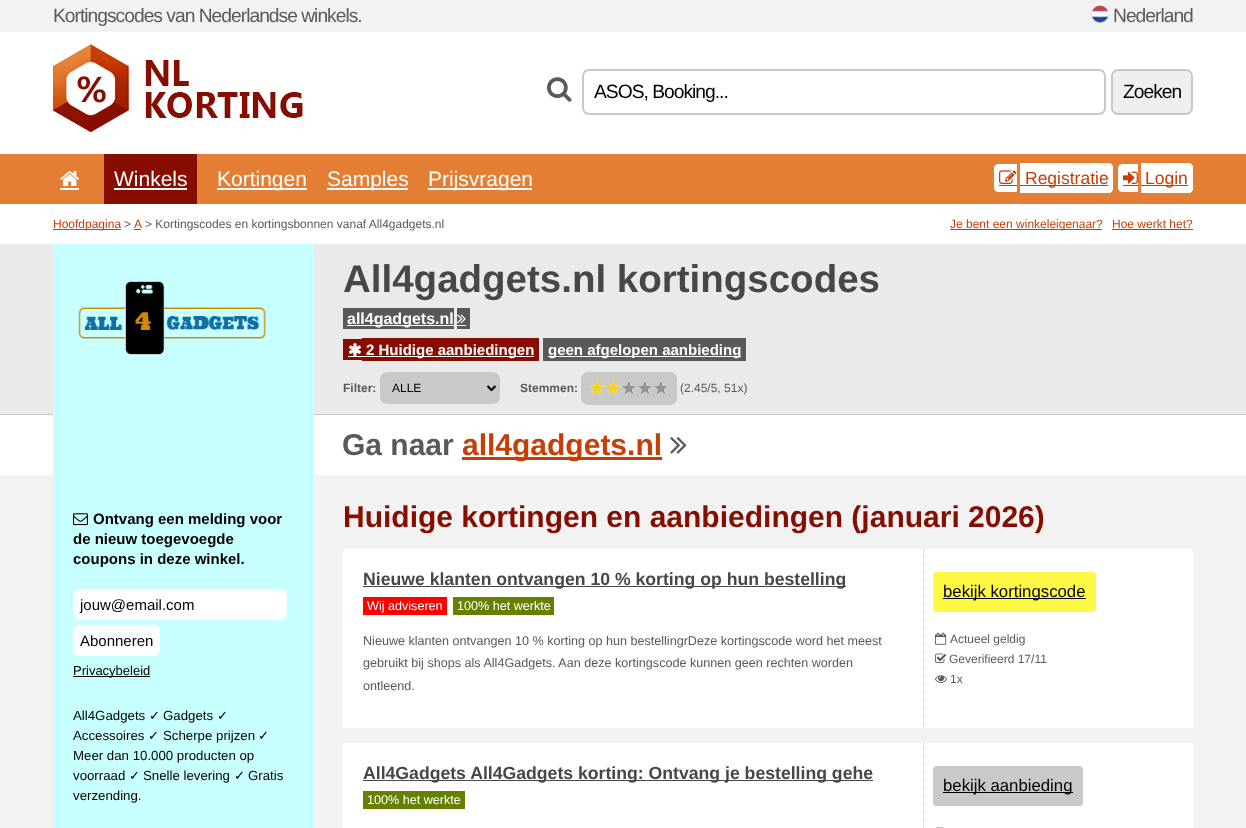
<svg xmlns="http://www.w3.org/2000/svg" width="1246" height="828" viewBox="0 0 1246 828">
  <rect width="100%" height="100%" fill="#f2f2f2"/>
  <image x="1091" y="5" width="18" height="18" href="img/1.png"/>
  <path d="M0 32h1246v122H0z" fill="#fff"/>
  <image x="53" y="44" width="250" height="88" href="img/2.png"/>
  <image x="547" y="77" width="25" height="25" href="img/3.png"/>
  <rect x="583" y="70" width="522" height="44" rx="6" fill="none" stroke="#c9c9c9" stroke-width="2"/>
  <rect x="1112" y="70" width="80" height="44" rx="6" fill="#efefef" stroke="#c9c9c9" stroke-width="2"/>
  <path d="M0 154h1246v50H0z" fill="#e47e34"/>
  <image x="60" y="171" width="19" height="15" href="img/4.png"/>
  <path d="M60 188h19v2H60z" fill="#fff"/>
  <path d="M104 154h93v50H104z" fill="#870d00"/>
  <path d="M114 188h73v2H114z" fill="#fff"/>
  <path d="M217 188h90v2H217z" fill="#fff"/>
  <path d="M327 188h81v2H327z" fill="#fff"/>
  <path d="M428 188h104v2H428z" fill="#fff"/>
  <path d="M998 164H1017V192H998C996 192 994 190 994 188V168C994 166 996 164 998 164Z" fill="#fff"/>
  <image x="999" y="170" width="18" height="14" href="img/5.png"/>
  <path d="M1020 163H1109C1111 163 1113 165 1113 167V189C1113 191 1111 193 1109 193H1020Z" fill="#fff"/>
  <path d="M999 185h18v1H999z" fill="#c63e05"/>
  <path d="M1020 185h88v1H1020z" fill="#c63e05"/>
  <path d="M1122 164H1138V192H1122C1120 192 1118 190 1118 188V168C1118 166 1120 164 1122 164Z" fill="#fff"/>
  <image x="1123" y="171" width="15" height="13" href="img/6.png"/>
  <path d="M1141 163H1189C1191 163 1193 165 1193 167V189C1193 191 1191 193 1189 193H1141Z" fill="#fff"/>
  <path d="M1123 185h15v1H1123z" fill="#c63e05"/>
  <path d="M1141 185h47v1H1141z" fill="#c63e05"/>
  <path d="M0 204h1246v40H0z" fill="#fff"/>
  <path d="M53 229h68v1H53z" fill="#c63e05"/>
  <path d="M134 229h7v1H134z" fill="#c63e05"/>
  <path d="M950 229h152v1H950z" fill="#c63e05"/>
  <path d="M1112 229h81v1H1112z" fill="#c63e05"/>
  <path d="M0 244h1246v170H0z" fill="#eaeaea"/>
  <path d="M0 414h1246v1H0z" fill="#c9c9c9"/>
  <path d="M0 415h1246v60H0z" fill="#fff"/>
  <path d="M53 244h261v584H53z" fill="#c8ffff"/>
  <image x="78" y="281" width="188" height="74" href="img/7.png"/>
  <path d="M343 308h111v21H343z" fill="#595959"/>
  <path d="M457 308h13v21H457z" fill="#595959"/>
  <path d="M347 325h107v1H347z" fill="#fff"/>
  <path d="M457 325h9v1H457z" fill="#fff"/>
  <image x="457" y="314" width="9" height="10" href="img/8.png"/>
  <path d="M343 339h19v21H343z" fill="#870d00"/>
  <image x="349" y="343" width="12" height="13" href="img/9.png"/>
  <path d="M362 338h177v23H362z" fill="#870d00"/>
  <path d="M348 356h186v1H348z" fill="#fff"/>
  <path d="M543 338h203v23H543z" fill="#595959"/>
  <path d="M548 356h193v1H548z" fill="#fff"/>
  <rect x="380" y="372" width="120" height="32" rx="7" fill="#c9c9c9"/>
  <path d="M487.5 386L491.5 390L495.5 386" fill="none" stroke="#000" stroke-width="2"/>
  <rect x="581" y="372" width="96" height="33" rx="7" fill="#c9c9c9"/>
  <image x="589" y="380" width="15" height="15" href="img/10.png"/>
  <image x="605" y="380" width="15" height="15" href="img/10.png"/>
  <image x="621" y="380" width="15" height="15" href="img/11.png"/>
  <image x="637" y="380" width="15" height="15" href="img/11.png"/>
  <image x="653" y="380" width="15" height="15" href="img/11.png"/>
  <path d="M462 457h200v3H462z" fill="#c63e05"/>
  <image x="670" y="437" width="17" height="17" href="img/12.png"/>
  <image x="73" y="513" width="15" height="13" href="img/13.png"/>
  <rect x="73.5" y="589.5" width="213" height="30" rx="6.5" fill="#fff" stroke="#fff"/>
  <rect x="73" y="625" width="87" height="31" rx="7" fill="#fff"/>
  <path d="M73 676h77v1H73z" fill="#000"/>
  <path d="M343 549h850v179H343z" fill="#fff"/>
  <path d="M923.5 549V728" fill="none" stroke="#ccc" stroke-dasharray="1 1"/>
  <path d="M363 586h483v1H363z" fill="#474747"/>
  <path d="M363 597h84v18H363z" fill="#f00"/>
  <path d="M453 597h101v18H453z" fill="#658000"/>
  <rect x="933" y="572" width="163" height="40" rx="4" fill="#fff845"/>
  <path d="M943 598h143v1H943z" fill="#000"/>
  <image x="935" y="632" width="12" height="13" href="img/14.png"/>
  <image x="935" y="653" width="12" height="10" href="img/15.png"/>
  <image x="935" y="675" width="12" height="8" href="img/16.png"/>
  <path d="M343 743h850v85H343z" fill="#fff"/>
  <path d="M923.5 743V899" fill="none" stroke="#ccc" stroke-dasharray="1 1"/>
  <path d="M363 780h510v1H363z" fill="#474747"/>
  <path d="M363 791h102v18H363z" fill="#658000"/>
  <rect x="933" y="766" width="150" height="40" rx="4" fill="#c9c9c9"/>
  <path d="M943 792h130v1H943z" fill="#000"/>
  <image x="936" y="827" width="8" height="1" href="img/17.png"/>
  <g font-family="Liberation Sans" font-size="19.25" letter-spacing="-1" fill="#595959">
    <text x="53" y="22">Kortingscodes van Nederlandse winkels.</text>
    <text x="1113" y="22">Nederland</text>
  </g>
  <g font-family="Liberation Sans" font-size="19.25" letter-spacing="-1" fill="#000">
    <text x="594" y="98">ASOS, Booking...</text>
    <text x="1123" y="98">Zoeken</text>
  </g>
  <g font-family="Liberation Sans" font-size="21" fill="#fff">
    <text x="114" y="186">Winkels</text>
    <text x="217" y="186">Kortingen</text>
    <text x="327" y="186">Samples</text>
    <text x="428" y="186">Prijsvragen</text>
  </g>
  <g font-family="Liberation Sans" font-size="17.5" fill="#c63e05">
    <text x="1025" y="184">Registratie</text>
    <text x="1145" y="184">Login</text>
  </g>
  <text x="53" y="228" font-family="Liberation Sans" font-size="12" fill="#c63e05">Hoofdpagina</text>
  <text x="124" y="228" font-family="Liberation Sans" font-size="12" fill="#595959">&gt;</text>
  <text x="134" y="228" font-family="Liberation Sans" font-size="12" fill="#c63e05">A</text>
  <text x="145" y="228" font-family="Liberation Sans" font-size="12" fill="#595959">&gt; Kortingscodes en kortingsbonnen vanaf All4gadgets.nl</text>
  <g font-family="Liberation Sans" font-size="12" fill="#c63e05">
    <text x="950" y="228">Je bent een winkeleigenaar?</text>
    <text x="1112" y="228">Hoe werkt het?</text>
  </g>
  <text x="343" y="292" font-family="Liberation Sans" font-size="38.5" font-weight="bold" fill="#474747">All4gadgets.nl kortingscodes</text>
  <text x="347" y="324" font-family="Liberation Sans" font-size="16" font-weight="bold" fill="#fff">all4gadgets.nl</text>
  <g font-family="Liberation Sans" font-size="15" font-weight="bold" fill="#fff">
    <text x="366" y="355">2 Huidige aanbiedingen</text>
    <text x="548" y="355">geen afgelopen aanbieding</text>
  </g>
  <text x="343" y="392" font-family="Liberation Sans" font-size="12" font-weight="bold" fill="#595959">Filter:</text>
  <text x="392" y="392" font-family="Liberation Sans" font-size="12" fill="#000">ALLE</text>
  <text x="520" y="392" font-family="Liberation Sans" font-size="12" font-weight="bold" fill="#595959">Stemmen:</text>
  <text x="680" y="392" font-family="Liberation Sans" font-size="12" fill="#595959">(2.45/5, 51x)</text>
  <text x="342" y="455" font-family="Liberation Sans" font-size="30" font-weight="bold" fill="#595959">Ga naar</text>
  <text x="462" y="455" font-family="Liberation Sans" font-size="30" font-weight="bold" fill="#c63e05">all4gadgets.nl</text>
  <g font-family="Liberation Sans" font-size="15" font-weight="bold" fill="#000">
    <text x="93" y="524">Ontvang een melding voor</text>
    <text x="73" y="544">de nieuw toegevoegde</text>
    <text x="73" y="564">coupons in deze winkel.</text>
  </g>
  <g font-family="Liberation Sans" font-size="15" fill="#000">
    <text x="80" y="610">jouw@email.com</text>
    <text x="80" y="646">Abonneren</text>
  </g>
  <text x="73" y="675" font-family="Liberation Sans" font-size="13" fill="#000">Privacybeleid</text>
  <text x="73" y="720" font-family="Liberation Sans" font-size="13.25" fill="#000">All4Gadgets</text>
  <text x="149" y="720" font-family="DejaVu Sans" font-size="13.25" fill="#000">✓</text>
  <text x="163" y="720" font-family="Liberation Sans" font-size="13.25" fill="#000">Gadgets</text>
  <text x="217" y="720" font-family="DejaVu Sans" font-size="13.25" fill="#000">✓</text>
  <text x="73" y="740" font-family="Liberation Sans" font-size="13.25" fill="#000">Accessoires</text>
  <text x="148" y="740" font-family="DejaVu Sans" font-size="13.25" fill="#000">✓</text>
  <text x="163" y="740" font-family="Liberation Sans" font-size="13.25" fill="#000">Scherpe prijzen</text>
  <text x="258" y="740" font-family="DejaVu Sans" font-size="13.25" fill="#000">✓</text>
  <g font-family="Liberation Sans" font-size="13.25" fill="#000">
    <text x="73" y="760">Meer dan 10.000 producten op</text>
    <text x="73" y="780">voorraad</text>
  </g>
  <text x="129" y="780" font-family="DejaVu Sans" font-size="13.25" fill="#000">✓</text>
  <text x="143" y="780" font-family="Liberation Sans" font-size="13.25" fill="#000">Snelle levering</text>
  <text x="234" y="780" font-family="DejaVu Sans" font-size="13.25" fill="#000">✓</text>
  <g font-family="Liberation Sans" font-size="13.25" fill="#000">
    <text x="248" y="780">Gratis</text>
    <text x="73" y="800">verzending.</text>
  </g>
  <text x="343" y="527" font-family="Liberation Sans" font-size="30" font-weight="bold" fill="#870d00">Huidige kortingen en aanbiedingen (januari 2026)</text>
  <text x="363" y="585" font-family="Liberation Sans" font-size="17.65" font-weight="bold" fill="#474747">Nieuwe klanten ontvangen 10 % korting op hun bestelling</text>
  <g font-family="Liberation Sans" font-size="12.6" fill="#fff">
    <text x="367" y="610">Wij adviseren</text>
    <text x="457" y="610">100% het werkte</text>
  </g>
  <g font-family="Liberation Sans" font-size="12.6" fill="#595959">
    <text x="363" y="645">Nieuwe klanten ontvangen 10 % korting op hun bestellingrDeze kortingscode word het meest</text>
    <text x="363" y="667">gebruikt bij shops als All4Gadgets. Aan deze kortingscode kunnen geen rechten worden</text>
    <text x="363" y="690">ontleend.</text>
  </g>
  <text x="943" y="597" font-family="Liberation Sans" font-size="16.75" fill="#000">bekijk kortingscode</text>
  <g font-family="Liberation Sans" font-size="12" fill="#595959">
    <text x="950" y="643">Actueel geldig</text>
    <text x="949" y="663">Geverifieerd 17/11</text>
    <text x="950" y="683">1x</text>
  </g>
  <text x="363" y="779" font-family="Liberation Sans" font-size="17.65" font-weight="bold" fill="#474747">All4Gadgets All4Gadgets korting: Ontvang je bestelling gehe</text>
  <text x="367" y="804" font-family="Liberation Sans" font-size="12.6" fill="#fff">100% het werkte</text>
  <text x="943" y="791" font-family="Liberation Sans" font-size="16.75" fill="#000">bekijk aanbieding</text>
</svg>
